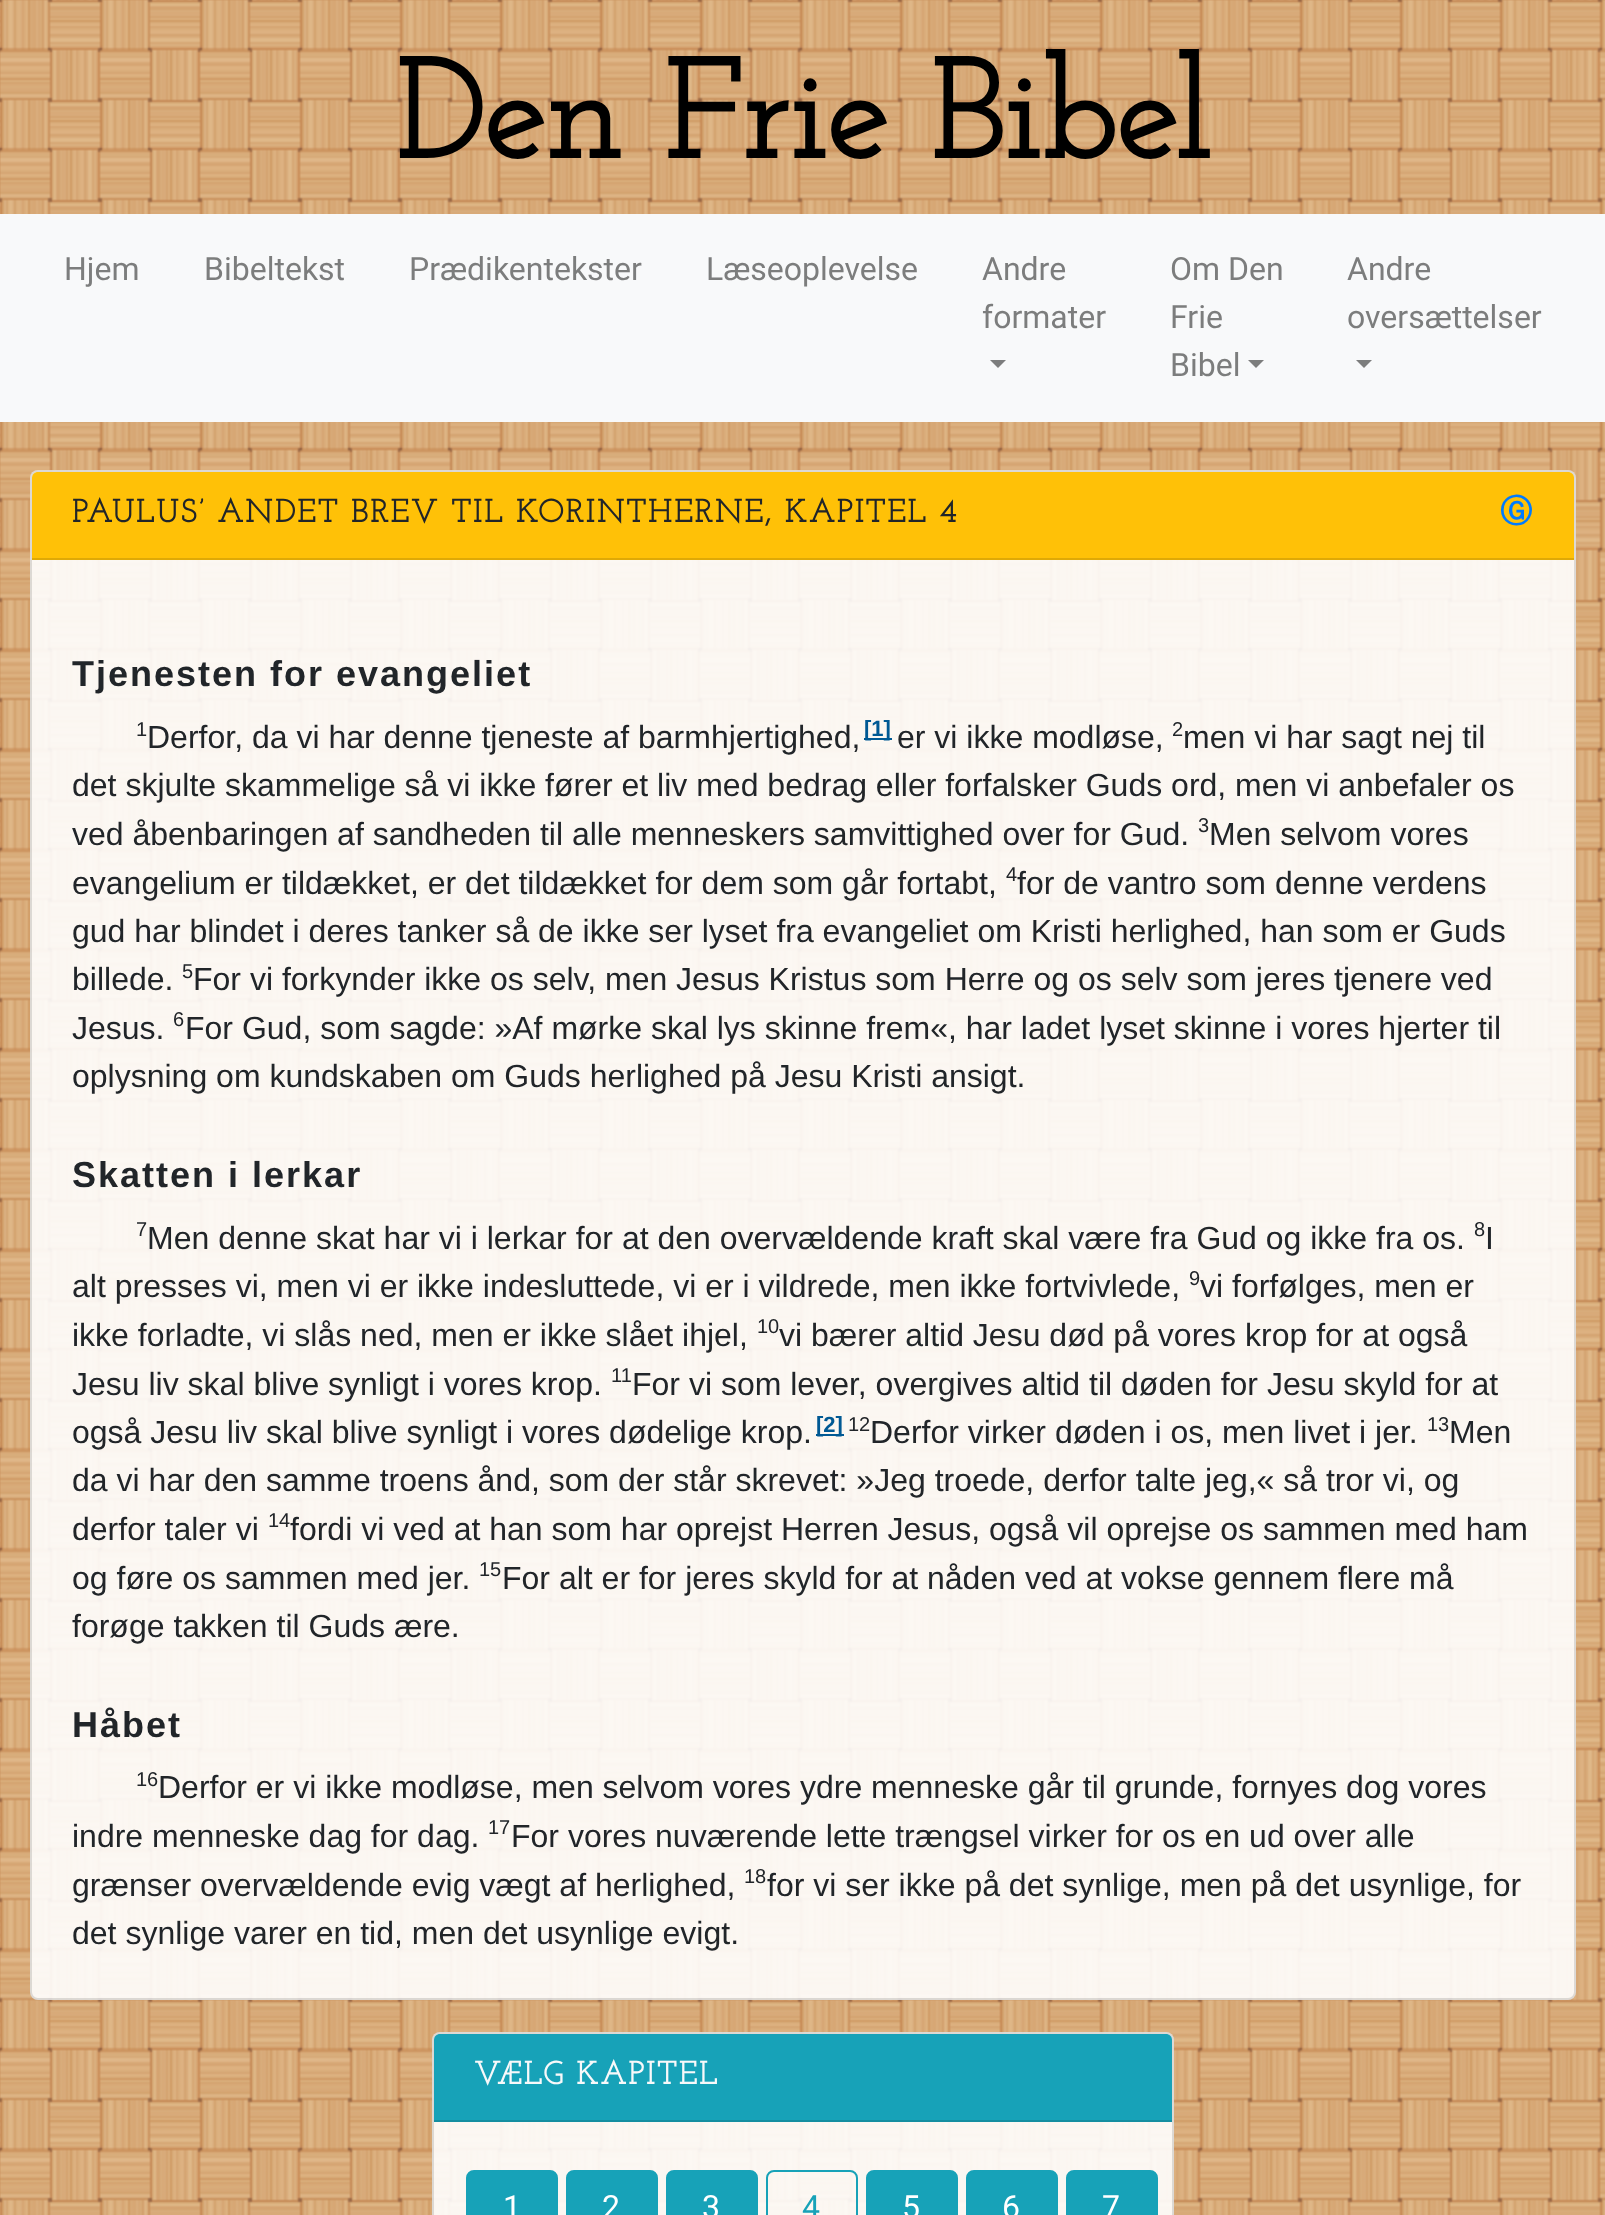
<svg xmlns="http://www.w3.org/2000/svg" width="1605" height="2215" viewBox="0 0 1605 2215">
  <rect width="100%" height="100%" fill="#fff"/>
  <image x="0" y="0" width="1605" height="2215" href="img/1.png"/>
  <path d="M0 214h1605v208H0z" fill="#f8f9fa"/>
  <path d="M990 360H1006L998 368Z" fill="#7c7d7d"/>
  <path d="M1248 360H1264L1256 368Z" fill="#7c7d7d"/>
  <path d="M1356 360H1372L1364 368Z" fill="#7c7d7d"/>
  <rect x="30" y="470" width="1546" height="1530" rx="8" fill="#ffffffe6"/>
  <rect x="31" y="471" width="1544" height="1528" rx="7" fill="none" stroke="#0000001f" stroke-width="2"/>
  <path d="M38 472H1568C1571.5 472 1574 474.5 1574 478V560H32V478C32 474.5 34.5 472 38 472Z" fill="#ffc107"/>
  <path d="M32 558h1542v2H32z" fill="#dfa906"/>
  <path d="M864 738h28v2H864z" fill="#005994"/>
  <path d="M816 1434h28v2H816z" fill="#005994"/>
  <rect x="432" y="2032" width="742" height="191" rx="8" fill="#ffffffe6"/>
  <rect x="433" y="2033" width="740" height="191" rx="7" fill="none" stroke="#0000001f" stroke-width="2"/>
  <path d="M440 2034H1166C1169.5 2034 1172 2036.5 1172 2040V2122H434V2040C434 2036.5 436.5 2034 440 2034Z" fill="#17a2b8"/>
  <path d="M434 2120h738v2H434z" fill="#148ea1"/>
  <rect x="467" y="2171" width="90" height="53" rx="7" fill="#17a2b8" stroke="#17a2b8" stroke-width="2"/>
  <rect x="567" y="2171" width="90" height="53" rx="7" fill="#17a2b8" stroke="#17a2b8" stroke-width="2"/>
  <rect x="667" y="2171" width="90" height="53" rx="7" fill="#17a2b8" stroke="#17a2b8" stroke-width="2"/>
  <rect x="767" y="2171" width="90" height="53" rx="7" fill="none" stroke="#17a2b8" stroke-width="2"/>
  <rect x="867" y="2171" width="90" height="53" rx="7" fill="#17a2b8" stroke="#17a2b8" stroke-width="2"/>
  <rect x="967" y="2171" width="90" height="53" rx="7" fill="#17a2b8" stroke="#17a2b8" stroke-width="2"/>
  <rect x="1067" y="2171" width="90" height="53" rx="7" fill="#17a2b8" stroke="#17a2b8" stroke-width="2"/>
  <text x="395" y="158" font-family="Josefin Slab" font-size="140" font-weight="bold" fill="#000">Den Frie Bibel</text>
  <g font-family="Roboto" font-size="32" fill="#7c7d7d">
    <text x="64" y="280">Hjem</text>
    <text x="204" y="280">Bibeltekst</text>
    <text x="409" y="280">Prædikentekster</text>
    <text x="706" y="280">Læseoplevelse</text>
    <text x="982" y="280">Andre</text>
    <text x="982" y="328">formater</text>
    <text x="1170" y="280">Om Den</text>
    <text x="1170" y="328">Frie</text>
    <text x="1170" y="376">Bibel</text>
    <text x="1347" y="280">Andre</text>
    <text x="1347" y="328">oversættelser</text>
  </g>
  <text x="72" y="522" font-family="Josefin Slab" font-size="32" font-weight="bold" letter-spacing="2" fill="#212529">PAULUS’ ANDET BREV TIL KORINTHERNE, KAPITEL 4</text>
  <text x="1500" y="522" font-family="WenQuanYi Zen Hei" font-size="32" font-weight="bold" letter-spacing="2" fill="#007bff">Ⓖ</text>
  <text x="72" y="686" font-family="Liberation Sans" font-size="36" font-weight="bold" letter-spacing="2" fill="#212529">Tjenesten for evangeliet</text>
  <text x="136" y="736" font-family="Liberation Sans" font-size="20" fill="#212529">1</text>
  <text x="147" y="748" font-family="Liberation Sans" font-size="32" fill="#212529">Derfor, da vi har denne tjeneste af barmhjertighed,</text>
  <text x="864" y="736" font-family="Liberation Sans" font-size="22" font-weight="bold" fill="#005994">[1]</text>
  <text x="897" y="748" font-family="Liberation Sans" font-size="32" fill="#212529">er vi ikke modløse,</text>
  <text x="1172" y="736" font-family="Liberation Sans" font-size="20" fill="#212529">2</text>
  <g font-family="Liberation Sans" font-size="32" fill="#212529">
    <text x="1183" y="748">men vi har sagt nej til</text>
    <text x="72" y="796">det skjulte skammelige så vi ikke fører et liv med bedrag eller forfalsker Guds ord, men vi anbefaler os</text>
    <text x="72" y="845">ved åbenbaringen af sandheden til alle menneskers samvittighed over for Gud.</text>
  </g>
  <text x="1198" y="832" font-family="Liberation Sans" font-size="20" fill="#212529">3</text>
  <g font-family="Liberation Sans" font-size="32" fill="#212529">
    <text x="1209" y="845">Men selvom vores</text>
    <text x="72" y="894">evangelium er tildækket, er det tildækket for dem som går fortabt,</text>
  </g>
  <text x="1006" y="881" font-family="Liberation Sans" font-size="20" fill="#212529">4</text>
  <g font-family="Liberation Sans" font-size="32" fill="#212529">
    <text x="1017" y="894">for de vantro som denne verdens</text>
    <text x="72" y="942">gud har blindet i deres tanker så de ikke ser lyset fra evangeliet om Kristi herlighed, han som er Guds</text>
    <text x="72" y="990">billede.</text>
  </g>
  <text x="182" y="978" font-family="Liberation Sans" font-size="20" fill="#212529">5</text>
  <g font-family="Liberation Sans" font-size="32" fill="#212529">
    <text x="193" y="990">For vi forkynder ikke os selv, men Jesus Kristus som Herre og os selv som jeres tjenere ved</text>
    <text x="72" y="1039">Jesus.</text>
  </g>
  <text x="173" y="1026" font-family="Liberation Sans" font-size="20" fill="#212529">6</text>
  <g font-family="Liberation Sans" font-size="32" fill="#212529">
    <text x="185" y="1039">For Gud, som sagde: »Af mørke skal lys skinne frem«, har ladet lyset skinne i vores hjerter til</text>
    <text x="72" y="1087">oplysning om kundskaben om Guds herlighed på Jesu Kristi ansigt.</text>
  </g>
  <text x="72" y="1187" font-family="Liberation Sans" font-size="36" font-weight="bold" letter-spacing="2" fill="#212529">Skatten i lerkar</text>
  <text x="136" y="1236" font-family="Liberation Sans" font-size="20" fill="#212529">7</text>
  <text x="147" y="1249" font-family="Liberation Sans" font-size="32" fill="#212529">Men denne skat har vi i lerkar for at den overvældende kraft skal være fra Gud og ikke fra os.</text>
  <text x="1474" y="1236" font-family="Liberation Sans" font-size="20" fill="#212529">8</text>
  <g font-family="Liberation Sans" font-size="32" fill="#212529">
    <text x="1485" y="1249">I</text>
    <text x="72" y="1297">alt presses vi, men vi er ikke indesluttede, vi er i vildrede, men ikke fortvivlede,</text>
  </g>
  <text x="1189" y="1285" font-family="Liberation Sans" font-size="20" fill="#212529">9</text>
  <g font-family="Liberation Sans" font-size="32" fill="#212529">
    <text x="1200" y="1297">vi forfølges, men er</text>
    <text x="72" y="1346">ikke forladte, vi slås ned, men er ikke slået ihjel,</text>
  </g>
  <text x="757" y="1333" font-family="Liberation Sans" font-size="20" fill="#212529">10</text>
  <g font-family="Liberation Sans" font-size="32" fill="#212529">
    <text x="779" y="1346">vi bærer altid Jesu død på vores krop for at også</text>
    <text x="72" y="1395">Jesu liv skal blive synligt i vores krop.</text>
  </g>
  <text x="611" y="1382" font-family="Liberation Sans" font-size="20" fill="#212529">11</text>
  <g font-family="Liberation Sans" font-size="32" fill="#212529">
    <text x="632" y="1395">For vi som lever, overgives altid til døden for Jesu skyld for at</text>
    <text x="72" y="1443">også Jesu liv skal blive synligt i vores dødelige krop.</text>
  </g>
  <text x="816" y="1432" font-family="Liberation Sans" font-size="22" font-weight="bold" fill="#005994">[2]</text>
  <text x="848" y="1431" font-family="Liberation Sans" font-size="20" fill="#212529">12</text>
  <text x="870" y="1443" font-family="Liberation Sans" font-size="32" fill="#212529">Derfor virker døden i os, men livet i jer.</text>
  <text x="1427" y="1431" font-family="Liberation Sans" font-size="20" fill="#212529">13</text>
  <g font-family="Liberation Sans" font-size="32" fill="#212529">
    <text x="1449" y="1443">Men</text>
    <text x="72" y="1491">da vi har den samme troens ånd, som der står skrevet: »Jeg troede, derfor talte jeg,« så tror vi, og</text>
    <text x="72" y="1540">derfor taler vi</text>
  </g>
  <text x="268" y="1527" font-family="Liberation Sans" font-size="20" fill="#212529">14</text>
  <g font-family="Liberation Sans" font-size="32" fill="#212529">
    <text x="290" y="1540">fordi vi ved at han som har oprejst Herren Jesus, også vil oprejse os sammen med ham</text>
    <text x="72" y="1589">og føre os sammen med jer.</text>
  </g>
  <text x="479" y="1576" font-family="Liberation Sans" font-size="20" fill="#212529">15</text>
  <g font-family="Liberation Sans" font-size="32" fill="#212529">
    <text x="502" y="1589">For alt er for jeres skyld for at nåden ved at vokse gennem flere må</text>
    <text x="72" y="1637">forøge takken til Guds ære.</text>
  </g>
  <text x="72" y="1737" font-family="Liberation Sans" font-size="36" font-weight="bold" letter-spacing="2" fill="#212529">Håbet</text>
  <text x="136" y="1786" font-family="Liberation Sans" font-size="20" fill="#212529">16</text>
  <g font-family="Liberation Sans" font-size="32" fill="#212529">
    <text x="158" y="1798">Derfor er vi ikke modløse, men selvom vores ydre menneske går til grunde, fornyes dog vores</text>
    <text x="72" y="1847">indre menneske dag for dag.</text>
  </g>
  <text x="488" y="1834" font-family="Liberation Sans" font-size="20" fill="#212529">17</text>
  <g font-family="Liberation Sans" font-size="32" fill="#212529">
    <text x="511" y="1847">For vores nuværende lette trængsel virker for os en ud over alle</text>
    <text x="72" y="1896">grænser overvældende evig vægt af herlighed,</text>
  </g>
  <text x="744" y="1883" font-family="Liberation Sans" font-size="20" fill="#212529">18</text>
  <g font-family="Liberation Sans" font-size="32" fill="#212529">
    <text x="767" y="1896">for vi ser ikke på det synlige, men på det usynlige, for</text>
    <text x="72" y="1944">det synlige varer en tid, men det usynlige evigt.</text>
  </g>
  <text x="474" y="2084" font-family="Josefin Slab" font-size="32" font-weight="bold" letter-spacing="2" fill="#f8f9fa">VÆLG KAPITEL</text>
  <g font-family="Roboto" font-size="32" fill="#fff">
    <text x="503" y="2218">1</text>
    <text x="602" y="2218">2</text>
    <text x="702" y="2218">3</text>
  </g>
  <text x="802" y="2218" font-family="Roboto" font-size="32" fill="#17a2b8">4</text>
  <g font-family="Roboto" font-size="32" fill="#fff">
    <text x="902" y="2218">5</text>
    <text x="1002" y="2218">6</text>
    <text x="1102" y="2218">7</text>
  </g>
</svg>
